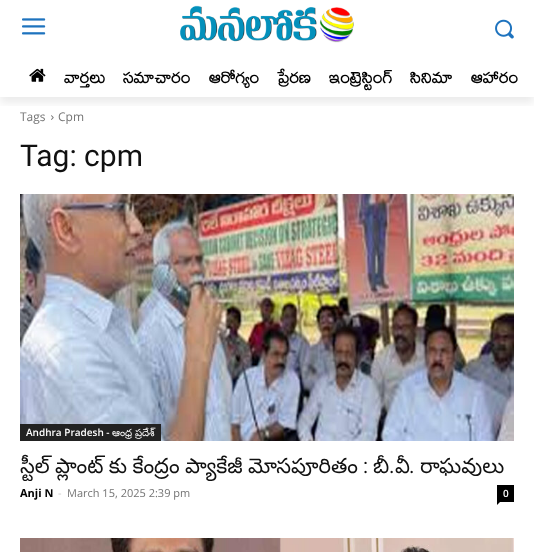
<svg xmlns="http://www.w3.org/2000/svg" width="534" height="552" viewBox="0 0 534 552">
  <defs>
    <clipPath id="clip1"><path d="M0 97h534v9H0z"/></clipPath>
  </defs>
  <rect width="100%" height="100%" fill="#fff"/>
  <image x="22" y="18" width="24" height="17" href="img/1.png"/>
  <image x="180" y="5" width="174" height="38" href="img/2.png"/>
  <image x="495" y="19" width="19" height="20" href="img/3.png"/>
  <image x="51" y="115" width="3" height="5" href="img/5.png"/>
  <g clip-path="url(#clip1)">
    <path d="M0 6h534v97H0z" fill="#00000014" filter="blur(4px)"/>
  </g>
  <image x="29" y="68" width="17" height="14" href="img/4.png"/>
  <image x="20" y="194" width="494" height="247" href="img/6.png"/>
  <path d="M20 424h141v17H20z" fill="#222"/>
  <path d="M497 485h17v17H497z" fill="#000"/>
  <path d="M497 502H500L497 505Z" fill="#000"/>
  <image x="20" y="538" width="494" height="14" href="img/7.png"/>
  <g font-family="Mallanna" font-size="18" font-weight="bold" fill="#000">
    <text x="64" y="83">వార్తలు</text>
    <text x="123" y="83">సమాచారం</text>
    <text x="209" y="83">ఆరోగ్యం</text>
    <text x="277" y="83">ప్రేర‌ణ‌</text>
    <text x="329" y="83">ఇంట్రెస్టింగ్‌</text>
    <text x="410" y="83">సినిమా</text>
    <text x="471" y="83">ఆహారం</text>
  </g>
  <g font-family="Open Sans" font-size="12" fill="#747474">
    <text x="20" y="121">Tags</text>
    <text x="58" y="121">Cpm</text>
  </g>
  <text x="20" y="166" font-family="Roboto" font-size="30" fill="#111">Tag: cpm</text>
  <text x="26" y="436" font-family="Open Sans" font-size="10" font-weight="600" fill="#fff">Andhra Pradesh -</text>
  <text x="112" y="436" font-family="Noto Sans Telugu" font-size="10" fill="#fff">ఆంధ్ర ప్రదేశ్‌</text>
  <text x="20" y="473" word-spacing="-0.5" font-family="Noto Sans Telugu" font-size="21" fill="#111">స్టీల్ ప్లాంట్ కు కేంద్రం ప్యాకేజీ మోసపూరితం</text>
  <text x="363" y="473" font-family="Roboto" font-size="21" fill="#111">:</text>
  <text x="373" y="473" font-family="Noto Sans Telugu" font-size="21" fill="#111">బీ</text>
  <text x="389" y="473" font-family="Roboto" font-size="21" fill="#111">.</text>
  <text x="395" y="473" font-family="Noto Sans Telugu" font-size="21" fill="#111">వీ</text>
  <text x="409" y="473" font-family="Roboto" font-size="21" fill="#111">.</text>
  <text x="420" y="473" font-family="Noto Sans Telugu" font-size="21" fill="#111">రాఘవులు</text>
  <text x="20" y="497" font-family="Open Sans" font-size="11" font-weight="bold" fill="#000">Anji N</text>
  <text x="58" y="497" font-family="Open Sans" font-size="11" fill="#ccc">-</text>
  <text x="67" y="497" font-family="Open Sans" font-size="11" fill="#747474">March 15, 2025 2:39 pm</text>
  <text x="503" y="497" font-family="Open Sans" font-size="10" font-weight="600" fill="#fff">0</text>
</svg>
